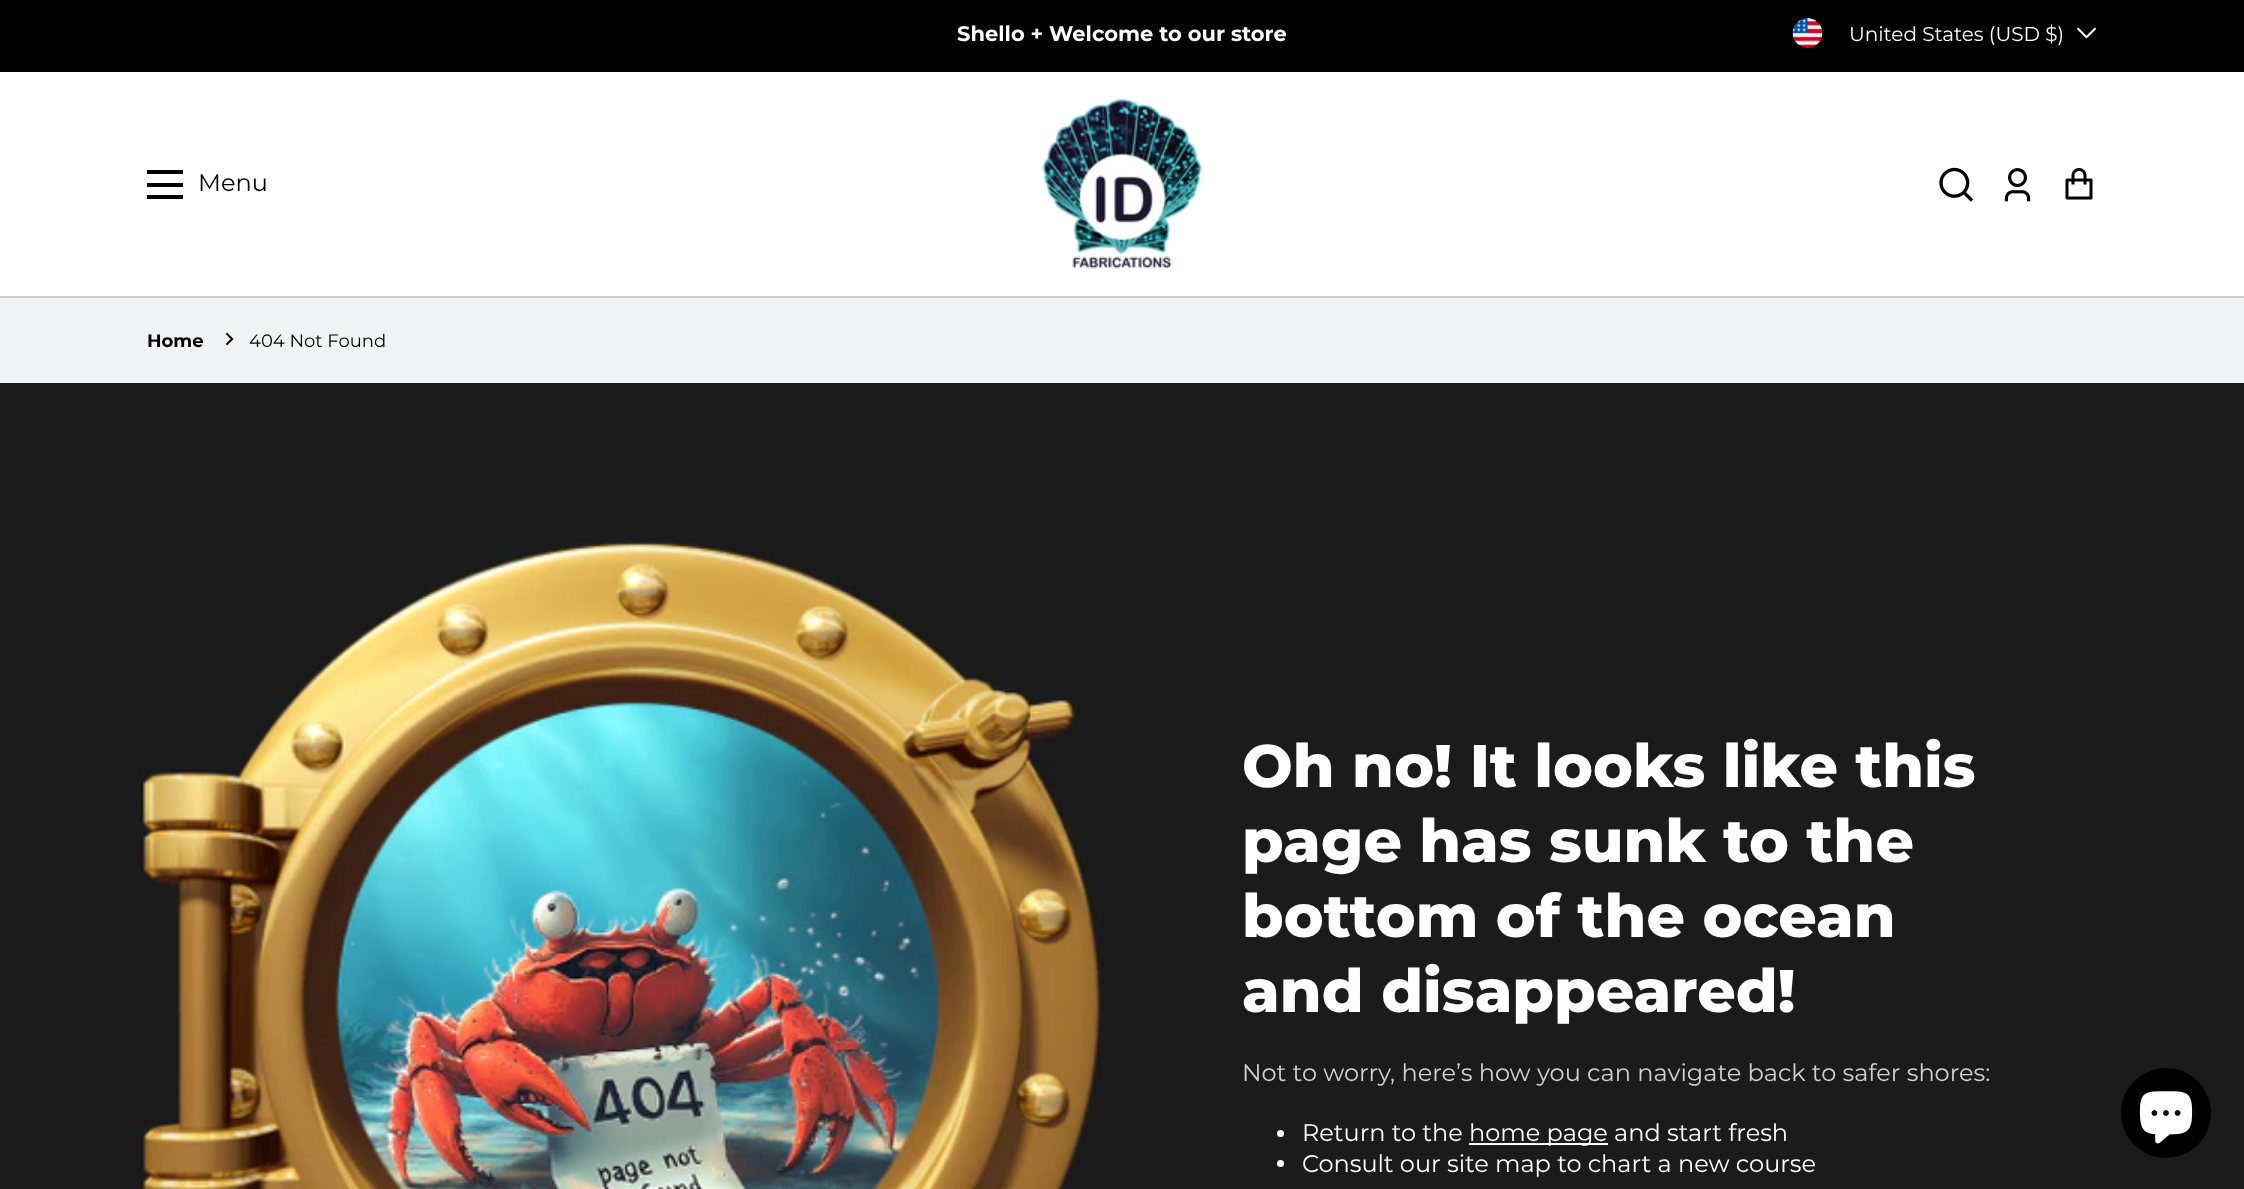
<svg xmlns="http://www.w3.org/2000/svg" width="2244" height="1189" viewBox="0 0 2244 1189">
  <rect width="100%" height="100%" fill="#fff"/>
  <path d="M0 0h2244v72H0z" fill="#000"/>
  <image x="1792" y="18" width="31" height="30" href="img/1.png"/>
  <image x="2077" y="27" width="19" height="12" href="img/2.png"/>
  <path d="M0 296h2244v2H0z" fill="#cecece"/>
  <path d="M147 195h36v4H147z" fill="#000"/>
  <path d="M147 183h36v4H147z" fill="#000"/>
  <path d="M147 170h36v4H147z" fill="#000"/>
  <image x="1042" y="98" width="160" height="171" href="img/3.png"/>
  <image x="1939" y="167" width="35" height="35" href="img/4.png"/>
  <image x="2004" y="168" width="27" height="34" href="img/5.png"/>
  <image x="2065" y="168" width="28" height="32" href="img/6.png"/>
  <path d="M0 298h2244v85H0z" fill="#f1f2f4"/>
  <image x="225" y="332" width="9" height="14" href="img/7.png"/>
  <path d="M0 383h2244v806H0z" fill="#1b1b1b"/>
  <image x="137" y="537" width="969" height="652" href="img/8.png"/>
  <circle cx="1280.5" cy="1133.5" r="3.5" fill="#fff"/>
  <path d="M1469 1143h139v2H1469z" fill="#fff"/>
  <circle cx="1280.5" cy="1163.5" r="3.5" fill="#fff"/>
  <circle cx="2166" cy="1113" r="45" fill="#000"/>
  <image x="2139" y="1091" width="54" height="53" href="img/9.png"/>
  <text x="957" y="41" font-family="Montserrat" font-size="21" font-weight="bold" fill="#fff">Shello + Welcome to our store</text>
  <text x="1849" y="41" font-family="Montserrat" font-size="20" fill="#fff">United States (USD $)</text>
  <text x="198" y="191" font-family="Montserrat" font-size="24" fill="#000">Menu</text>
  <text x="147" y="347" font-family="Montserrat" font-size="18" font-weight="bold" fill="#000">Home</text>
  <text x="249" y="347" font-family="Montserrat" font-size="18" fill="#000">404 Not Found</text>
  <g font-family="Montserrat" font-size="60" font-weight="800" fill="#fff">
    <text x="1242" y="787">Oh no! It looks like this</text>
    <text x="1242" y="862">page has sunk to the</text>
    <text x="1242" y="937">bottom of the ocean</text>
    <text x="1242" y="1012">and disappeared!</text>
  </g>
  <text x="1242" y="1081" font-family="Montserrat" font-size="24" fill="#d1d1d1">Not to worry, here’s how you can navigate back to safer shores:</text>
  <g font-family="Montserrat" font-size="24" fill="#fff">
    <text x="1302" y="1141">Return to the</text>
    <text x="1469" y="1141">home page and start fresh</text>
    <text x="1302" y="1172">Consult our site map to chart a new course</text>
  </g>
</svg>
